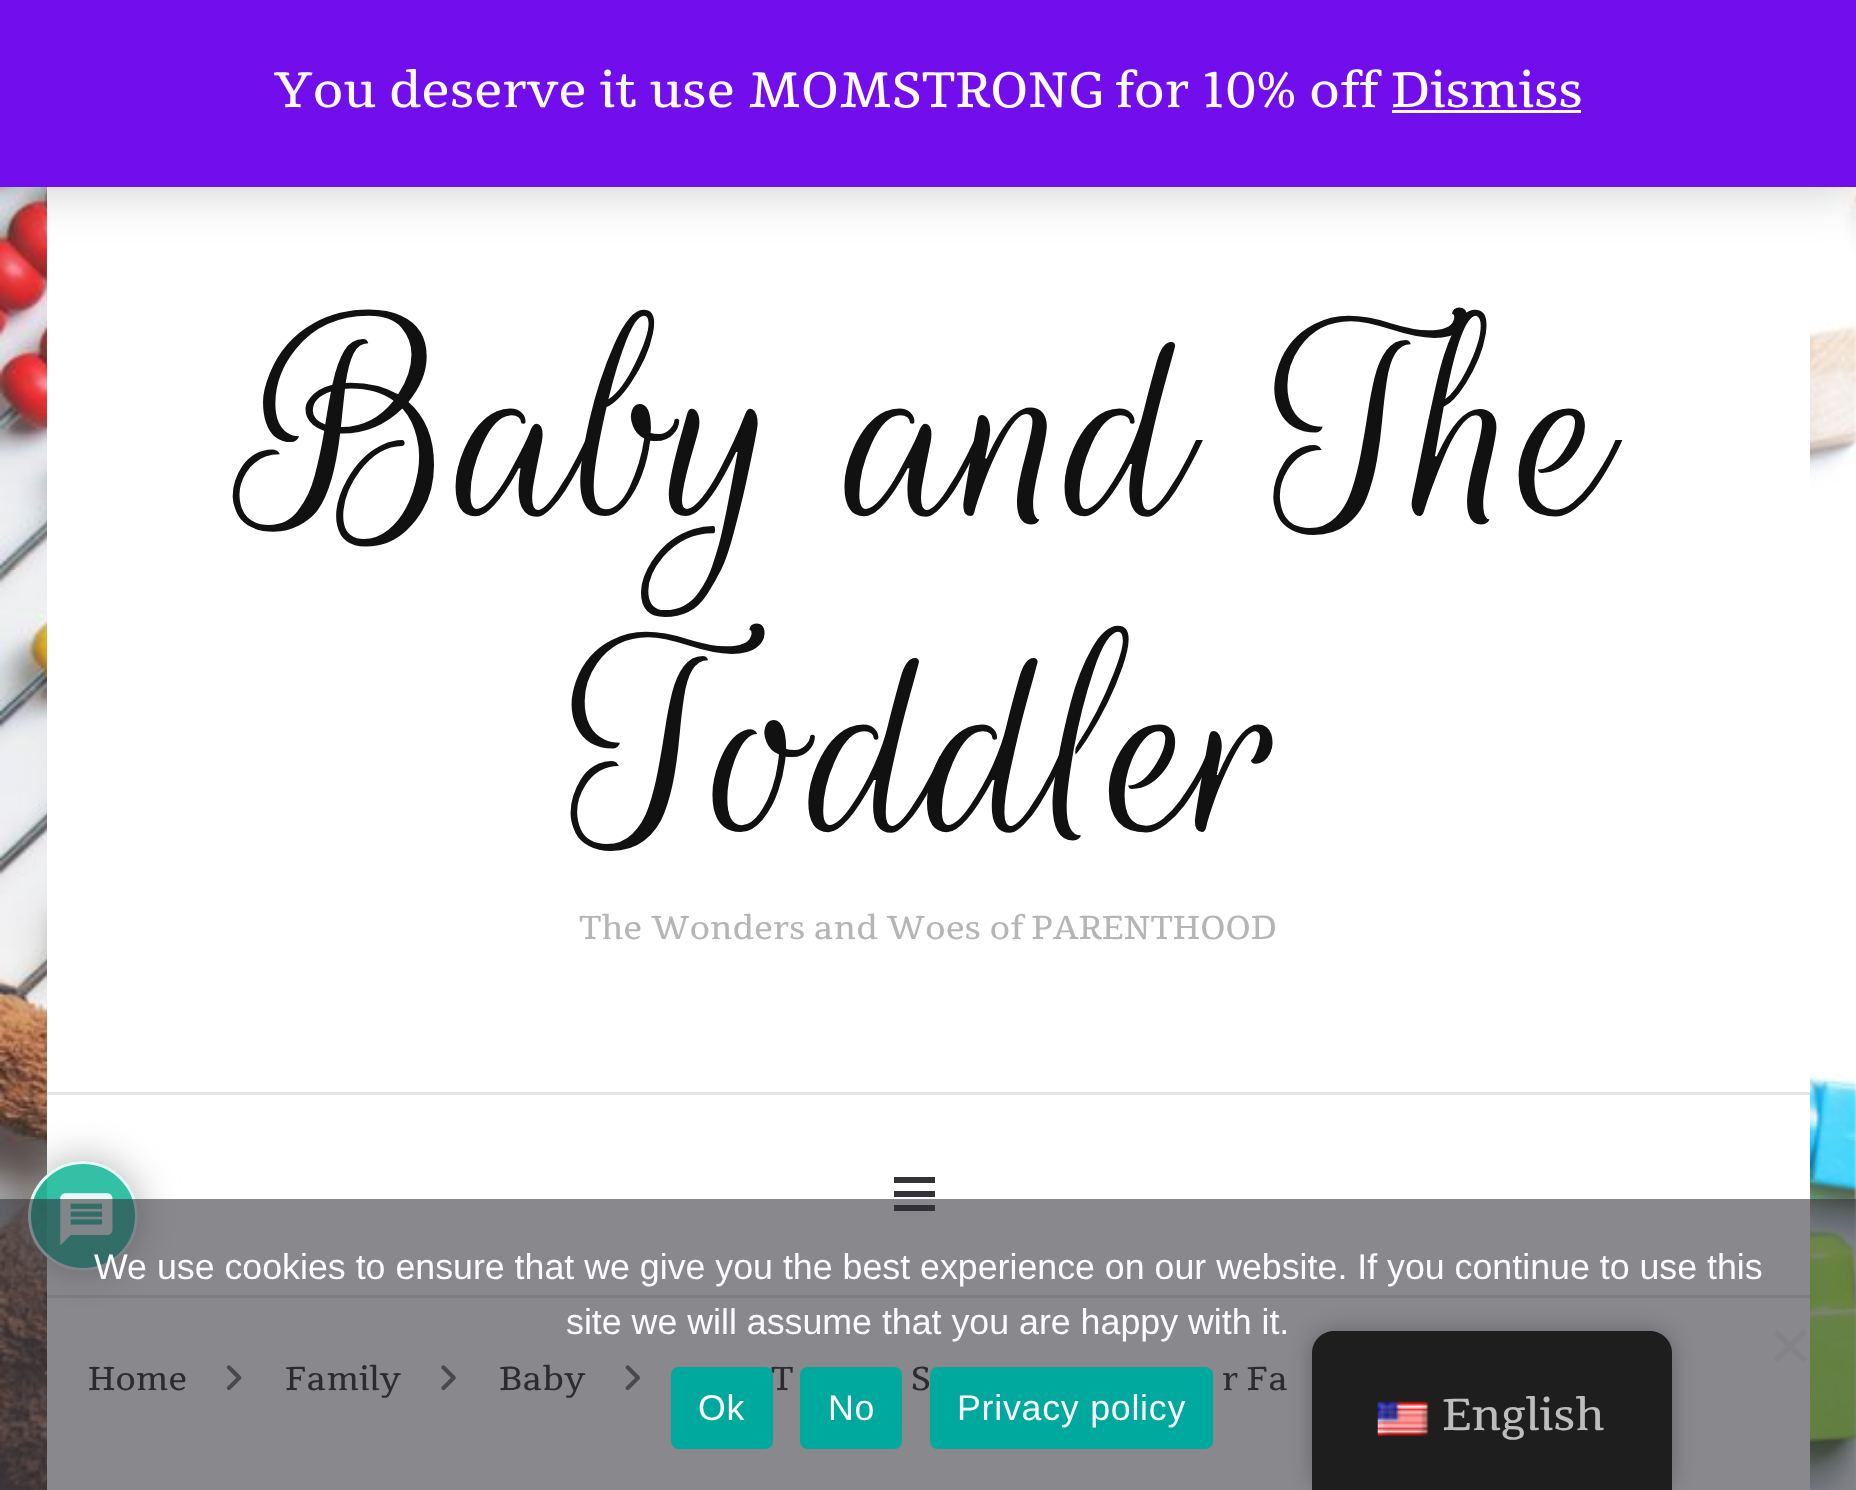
<svg xmlns="http://www.w3.org/2000/svg" width="1856" height="1490" viewBox="0 0 1856 1490">
  <defs>
    <clipPath id="clip1"><path d="M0 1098H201V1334H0ZM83 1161C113.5 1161 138 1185.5 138 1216C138 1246.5 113.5 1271 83 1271C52.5 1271 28 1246.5 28 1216C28 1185.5 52.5 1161 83 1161Z" clip-rule="evenodd"/></clipPath>
  </defs>
  <rect width="100%" height="100%" fill="#fff"/>
  <image x="0" y="187" width="1856" height="1303" href="img/1.png"/>
  <path d="M47 187h1763v1303H47z" fill="#fff"/>
  <path d="M0 3h1856v187H0z" fill="#00000033" filter="blur(25px)"/>
  <path d="M0 0h1856v187H0z" fill="#720eec"/>
  <path d="M1392 110h189v3H1392z" fill="#fcfbfe"/>
  <path d="M47 1092h1763v3H47z" fill="#e5e5e5"/>
  <path d="M47 1295h1763v3H47z" fill="#e5e5e5"/>
  <path d="M894 1191h41v6H894z" fill="#323338"/>
  <path d="M894 1177h41v6H894z" fill="#323338"/>
  <path d="M894 1205h41v6H894z" fill="#323338"/>
  <image x="226" y="1365" width="16" height="26" href="img/2.png"/>
  <image x="441" y="1365" width="15" height="26" href="img/3.png"/>
  <image x="625" y="1365" width="15" height="26" href="img/4.png"/>
  <g clip-path="url(#clip1)">
    <rect x="28" y="1161" width="110" height="110" rx="55" fill="#aaaaaae6" filter="blur(20.5px)"/>
  </g>
  <circle cx="83" cy="1216" r="55" fill="#1db99ae6"/>
  <circle cx="83" cy="1216" r="53.5" fill="none" stroke="#ffffffe6" stroke-width="3"/>
  <image x="60" y="1193" width="53" height="53" href="img/5.png"/>
  <text x="274" y="107" font-family="Tienne" font-size="49.5" fill="#fcfbfe">You deserve it use MOMSTRONG for 10% off Dismiss</text>
  <g font-family="Rouge Script" font-size="316.25" fill="#111">
    <text x="240" y="516">Baby and The</text>
    <text x="569" y="832">Toddler</text>
  </g>
  <text x="579" y="939" font-family="Tienne" font-size="33" fill="#b5b5b5">The Wonders and Woes of PARENTHOOD</text>
  <g font-family="Tienne" font-size="33" fill="#222">
    <text x="88" y="1390">Home</text>
    <text x="285" y="1390">Family</text>
    <text x="499" y="1390">Baby</text>
    <text x="771" y="1390">T</text>
    <text x="911" y="1390">S</text>
    <text x="1222" y="1390">r Fa</text>
  </g>
  <path d="M0 1199h1856v291H0z" fill="#32323a94"/>
  <g font-family="Liberation Sans" font-size="35.75" fill="#fcfbfe">
    <text x="94" y="1279">We use cookies to ensure that we give you the best experience on our website. If you continue to use this</text>
    <text x="566" y="1334">site we will assume that you are happy with it.</text>
  </g>
  <path d="M1803 1329.5L1807 1333.5L1777.5 1362.5L1773.5 1359Z" fill="#848486"/>
  <path d="M1773.5 1333.5L1777.5 1329.5L1807 1359L1803 1362.5Z" fill="#848486"/>
  <rect x="671" y="1367" width="102" height="82" rx="8" fill="#00a99d"/>
  <text x="698" y="1420" font-family="Liberation Sans" font-size="35.75" letter-spacing="0.75" fill="#fcfbfe">Ok</text>
  <rect x="800" y="1367" width="102" height="82" rx="8" fill="#00a99d"/>
  <text x="828" y="1420" font-family="Liberation Sans" font-size="35.75" letter-spacing="0.75" fill="#fcfbfe">No</text>
  <rect x="930" y="1367" width="283" height="82" rx="8" fill="#00a99d"/>
  <text x="957" y="1420" font-family="Liberation Sans" font-size="35.75" letter-spacing="0.75" fill="#fcfbfe">Privacy policy</text>
  <rect x="1312" y="1331" width="360" height="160" rx="22" fill="#00000040" filter="blur(11px)"/>
  <path d="M1334 1331H1650C1662 1331 1672 1341 1672 1353V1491H1312V1353C1312 1341 1322 1331 1334 1331Z" fill="#1e1e1e"/>
  <image x="1377" y="1401" width="52" height="35" href="img/6.png"/>
  <text x="1442" y="1430" font-family="Tienne" font-size="44.5" fill="#bdbdbd">English</text>
</svg>
